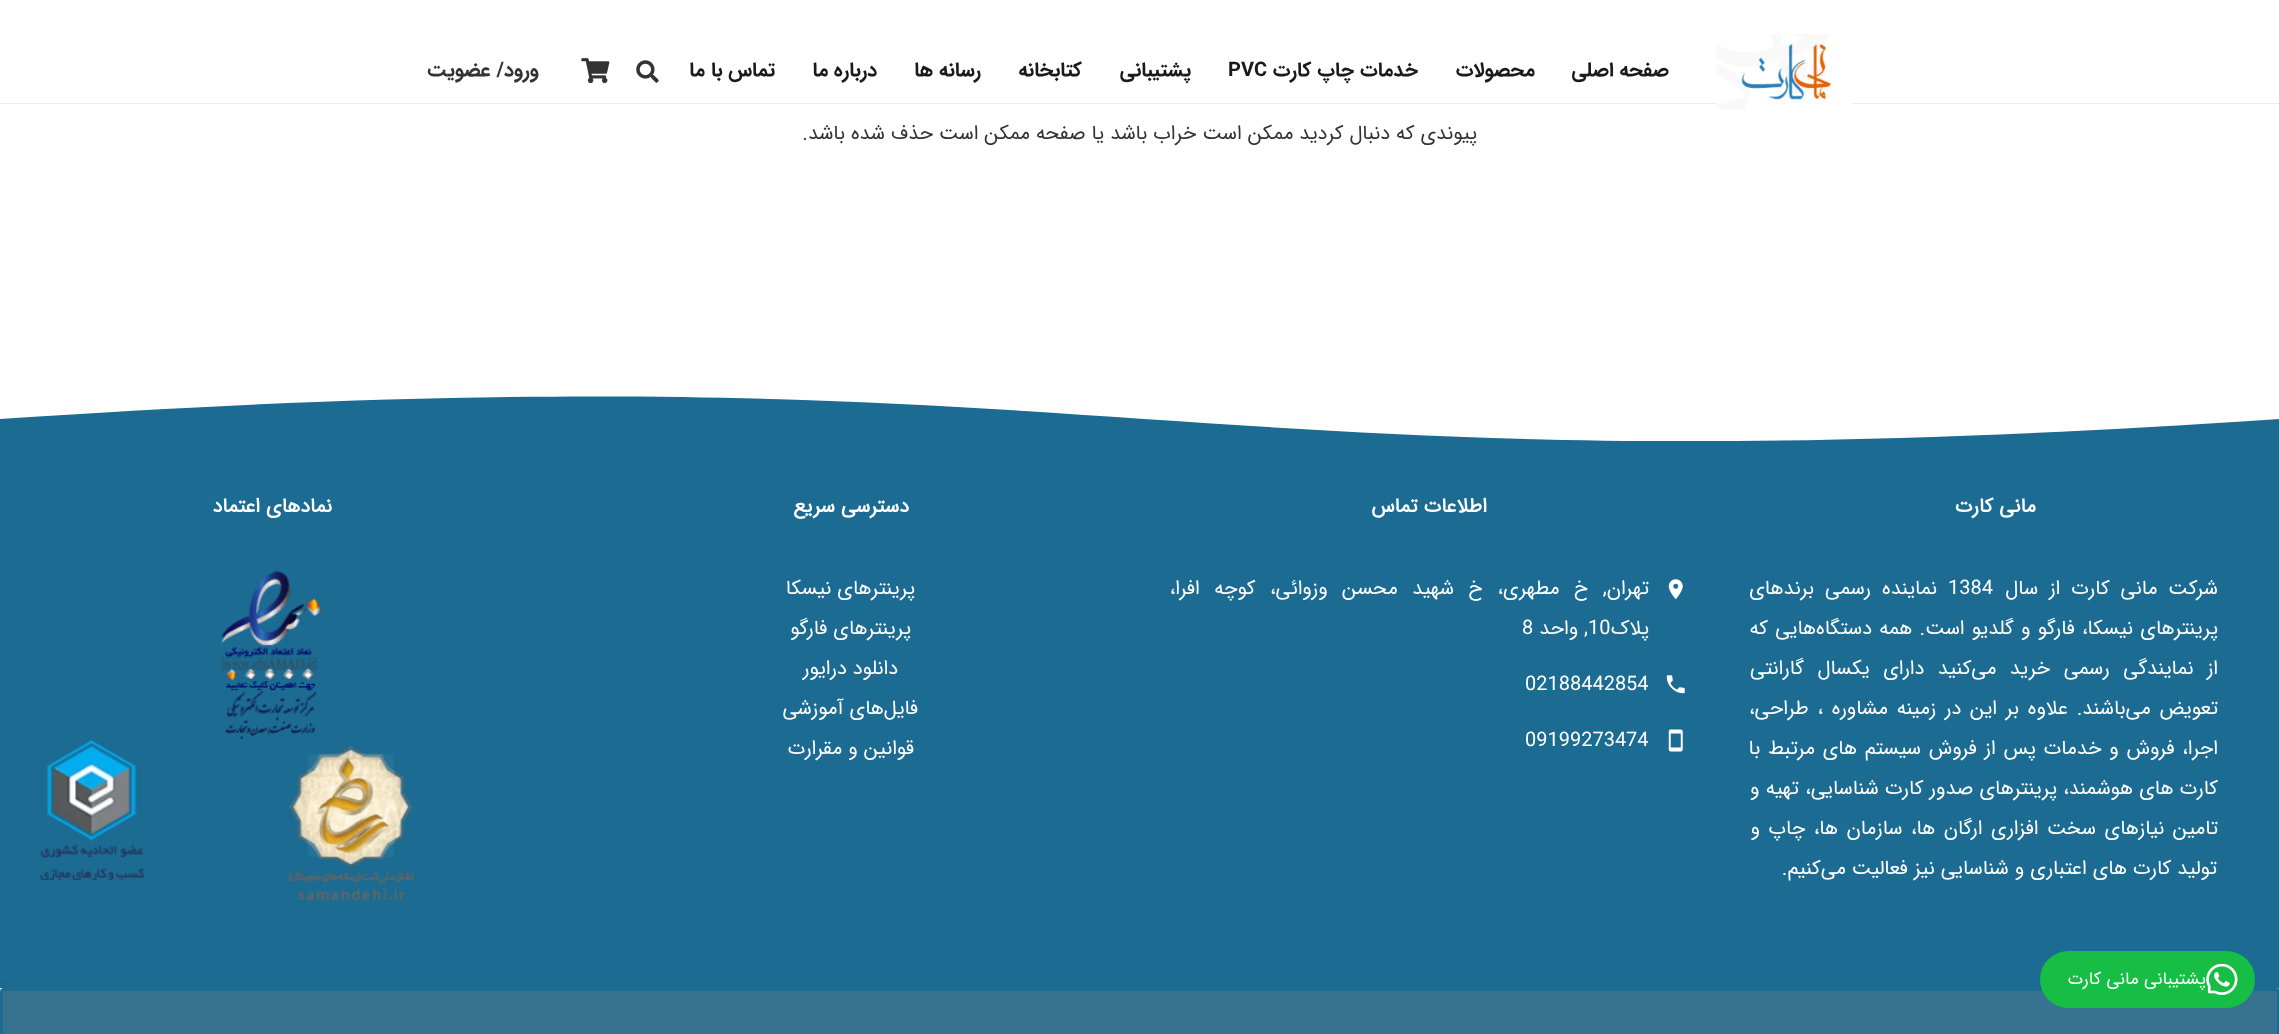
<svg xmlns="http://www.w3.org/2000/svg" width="2279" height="1034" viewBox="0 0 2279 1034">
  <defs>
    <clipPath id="clip1"><path d="M0 394h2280v51H0z"/></clipPath>
    <clipPath id="clip2"><path d="M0 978H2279V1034H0ZM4 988H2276C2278 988 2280 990 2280 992V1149C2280 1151 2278 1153 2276 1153H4C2 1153 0 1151 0 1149V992C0 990 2 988 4 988Z" clip-rule="evenodd"/></clipPath>
  </defs>
  <rect width="100%" height="100%" fill="#fff"/>
  <path d="M0 103h2279v1H0z" fill="#00000014"/>
  <image x="1716" y="34" width="137" height="75" href="img/1.png"/>
  <image x="636" y="60" width="23" height="23" href="img/2.png"/>
  <image x="581" y="58" width="29" height="26" href="img/3.png"/>
  <path d="M0 396h2279v592H0z" fill="#1b6b93"/>
  <g clip-path="url(#clip1)">
    <path d="M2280 419C1140 496 1140 341 0 419V393H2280Z" fill="#fff"/>
  </g>
  <image x="1668" y="579" width="15" height="21" href="img/4.png"/>
  <image x="1666" y="675" width="19" height="19" href="img/5.png"/>
  <image x="1668" y="729" width="15" height="23" href="img/6.png"/>
  <image x="221" y="571" width="102" height="168" href="img/7.png"/>
  <image x="287" y="746" width="128" height="155" href="img/8.png"/>
  <image x="40" y="739" width="105" height="141" href="img/9.png"/>
  <g clip-path="url(#clip2)">
    <rect y="988" width="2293" height="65" rx="10" fill="#1b6b93" filter="blur(3px)"/>
  </g>
  <rect x="1.5" y="989.5" width="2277" height="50" rx="2.5" fill="#054f75cc" stroke="#1b6b93" stroke-width="3"/>
  <rect x="2040" y="951" width="215" height="57" rx="28.5" fill="#16be45"/>
  <image x="2206" y="964" width="32" height="31" href="img/10.png"/>
  <g font-family="'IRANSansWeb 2'" font-size="20" font-weight="bold" direction="rtl" fill="#1a1a1a">
    <text x="1669" y="76">صفحه اصلی</text>
    <text x="1535" y="76">محصولات</text>
    <text x="1418" y="76">خدمات چاپ کارت</text>
  </g>
  <text x="1228" y="76" font-family="'IRANSansWeb 2'" font-size="20" font-weight="bold" fill="#1a1a1a">PVC</text>
  <g font-family="'IRANSansWeb 2'" font-size="20" font-weight="bold" direction="rtl" fill="#1a1a1a">
    <text x="1191" y="76">پشتیبانی</text>
    <text x="1082" y="76">کتابخانه</text>
    <text x="981" y="76">رسانه ها</text>
    <text x="877" y="76">درباره ما</text>
    <text x="775" y="76">تماس با ما</text>
  </g>
  <text x="539" y="76" font-family="'IRANSansWeb 2'" font-size="20" font-weight="bold" direction="rtl" fill="#333">ورود/ عضویت</text>
  <text x="1477" y="139" font-family="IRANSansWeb" font-size="20" direction="rtl" fill="#333">پیوندی که دنبال کردید ممکن است خراب باشد یا صفحه ممکن است حذف شده باشد.</text>
  <text x="2036" y="512" font-family="IRANSansWeb" font-size="20" font-weight="bold" direction="rtl" fill="#fff">مانی کارت</text>
  <text x="2218" y="594" word-spacing="5" font-family="IRANSansWeb" font-size="20" direction="rtl" fill="#fff">شرکت مانی کارت از سال</text>
  <text x="1948" y="594" font-family="IRANSansWeb" font-size="20" fill="#fff">1384</text>
  <g font-family="IRANSansWeb" font-size="20" direction="rtl" fill="#fff">
    <text x="1937" y="594" word-spacing="5">نماینده رسمی برندهای</text>
    <text x="2218" y="634" word-spacing="1.25">پرینترهای نیسکا، فارگو و گلدیو است. همه دستگاه‌هایی که</text>
    <text x="2218" y="674" word-spacing="7.5">از نمایندگی رسمی خرید می‌کنید دارای یکسال گارانتی</text>
    <text x="2218" y="714" word-spacing="2.75">تعویض می‌باشند. علاوه بر این در زمينه مشاوره ، طراحی،</text>
    <text x="2218" y="754" word-spacing="1.75">اجرا، فروش و خدمات پس از فروش سیستم های مرتبط با</text>
    <text x="2218" y="794" word-spacing="0.25">کارت های هوشمند، پرينترهای صدور کارت شناسایی، تهیه و</text>
    <text x="2218" y="834" word-spacing="2.5">تامین نیازهای سخت افزاری ارگان ها، سازمان ها، چاپ و</text>
    <text x="2217" y="874">تولید کارت های اعتباری و شناسایی نیز فعالیت می‌کنیم.</text>
  </g>
  <text x="1487" y="512" font-family="IRANSansWeb" font-size="20" font-weight="bold" direction="rtl" fill="#fff">اطلاعات تماس</text>
  <g font-family="IRANSansWeb" font-size="20" direction="rtl" fill="#fff">
    <text x="1649" y="594" word-spacing="8.5">تهران, خ مطهری، خ شهید محسن وزوائی، کوچه افرا،</text>
    <text x="1649" y="634">پلاک</text>
  </g>
  <text x="1588" y="634" font-family="IRANSansWeb" font-size="20" fill="#fff">10</text>
  <text x="1588" y="634" font-family="IRANSansWeb" font-size="20" direction="rtl" fill="#fff">, واحد</text>
  <g font-family="IRANSansWeb" font-size="20" fill="#fff">
    <text x="1522" y="634">8</text>
    <text x="1525" y="690">02188442854</text>
    <text x="1525" y="746">09199273474</text>
  </g>
  <text x="909" y="512" font-family="IRANSansWeb" font-size="20" font-weight="bold" direction="rtl" fill="#fff">دسترسی سریع</text>
  <g font-family="IRANSansWeb" font-size="20" direction="rtl" fill="#fff">
    <text x="915" y="594">پرینترهای نیسکا</text>
    <text x="911" y="634">پرینترهای فارگو</text>
    <text x="898" y="674">دانلود درایور</text>
    <text x="918" y="714">فایل‌های آموزشی</text>
    <text x="914" y="754">قوانین و مقرارت</text>
  </g>
  <text x="332" y="512" font-family="IRANSansWeb" font-size="20" font-weight="bold" direction="rtl" fill="#fff">نماد‌های اعتماد</text>
  <text x="2206" y="984" font-family="IRANSansWeb" font-size="17.5" direction="rtl" fill="#fff">پشتیبانی مانی کارت</text>
</svg>
